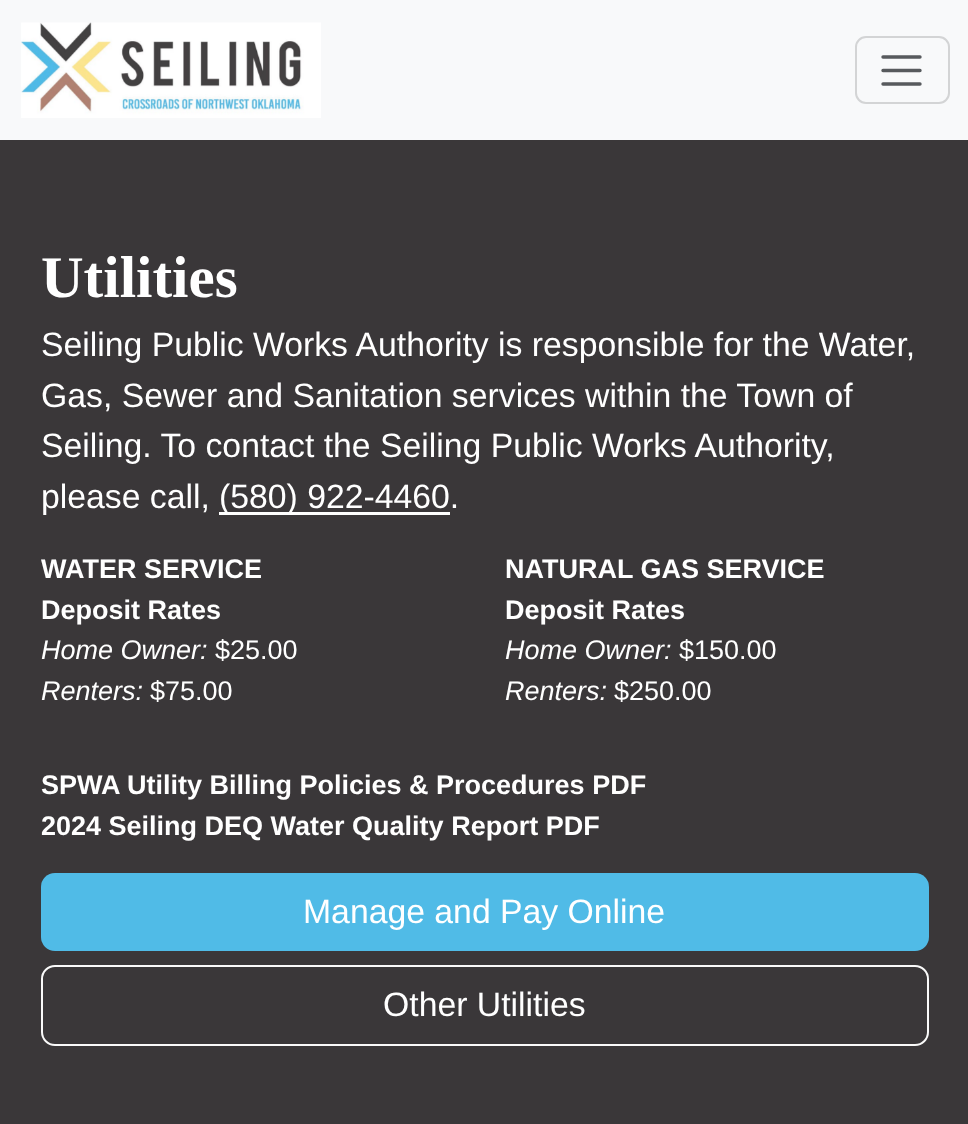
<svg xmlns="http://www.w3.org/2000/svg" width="968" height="1124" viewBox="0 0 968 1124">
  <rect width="100%" height="100%" fill="#3a3739"/>
  <path d="M0 0h968v140H0z" fill="#f8f9fa"/>
  <image x="21" y="22" width="300" height="96" href="img/1.png"/>
  <rect x="856" y="37" width="93" height="66" rx="10" fill="none" stroke="#d3d4d5" stroke-width="2"/>
  <path d="M883 57H920M883 70.5H920M883 84H920" fill="none" stroke="#575a5d" stroke-width="3.4" stroke-linecap="round"/>
  <path d="M219 512h231v3H219z" fill="#fff"/>
  <rect x="41" y="873" width="888" height="78" rx="14" fill="#50bbe7"/>
  <rect x="42" y="966" width="886" height="79" rx="13" fill="none" stroke="#fafafa" stroke-width="2"/>
  <text x="41" y="297" font-family="Liberation Serif" font-size="59" font-weight="bold" fill="#fff">Utilities</text>
  <g font-family="Liberation Sans" font-size="33.75" fill="#fff">
    <text x="41" y="356">Seiling Public Works Authority is responsible for the Water,</text>
    <text x="41" y="407">Gas, Sewer and Sanitation services within the Town of</text>
    <text x="41" y="457">Seiling. To contact the Seiling Public Works Authority,</text>
    <text x="41" y="508">please call,</text>
    <text x="219" y="508">(580) 922-4460.</text>
  </g>
  <g font-family="Liberation Sans" font-size="27" font-weight="bold" fill="#fff">
    <text x="41" y="578">WATER SERVICE</text>
    <text x="41" y="619">Deposit Rates</text>
  </g>
  <text x="41" y="659" font-family="Liberation Sans" font-size="27" font-style="italic" fill="#fff">Home Owner:</text>
  <text x="215" y="659" font-family="Liberation Sans" font-size="27" fill="#fff">$25.00</text>
  <text x="41" y="700" font-family="Liberation Sans" font-size="27" font-style="italic" fill="#fff">Renters:</text>
  <text x="150" y="700" font-family="Liberation Sans" font-size="27" fill="#fff">$75.00</text>
  <g font-family="Liberation Sans" font-size="27" font-weight="bold" fill="#fff">
    <text x="505" y="578">NATURAL GAS SERVICE</text>
    <text x="505" y="619">Deposit Rates</text>
  </g>
  <text x="505" y="659" font-family="Liberation Sans" font-size="27" font-style="italic" fill="#fff">Home Owner:</text>
  <text x="679" y="659" font-family="Liberation Sans" font-size="27" fill="#fff">$150.00</text>
  <text x="505" y="700" font-family="Liberation Sans" font-size="27" font-style="italic" fill="#fff">Renters:</text>
  <text x="614" y="700" font-family="Liberation Sans" font-size="27" fill="#fff">$250.00</text>
  <g font-family="Liberation Sans" font-size="27" font-weight="bold" fill="#fff">
    <text x="41" y="794">SPWA Utility Billing Policies &amp; Procedures PDF</text>
    <text x="41" y="835">2024 Seiling DEQ Water Quality Report PDF</text>
  </g>
  <g font-family="Liberation Sans" font-size="33.75" fill="#fff">
    <text x="303" y="923">Manage and Pay Online</text>
    <text x="383" y="1016">Other Utilities</text>
  </g>
</svg>
